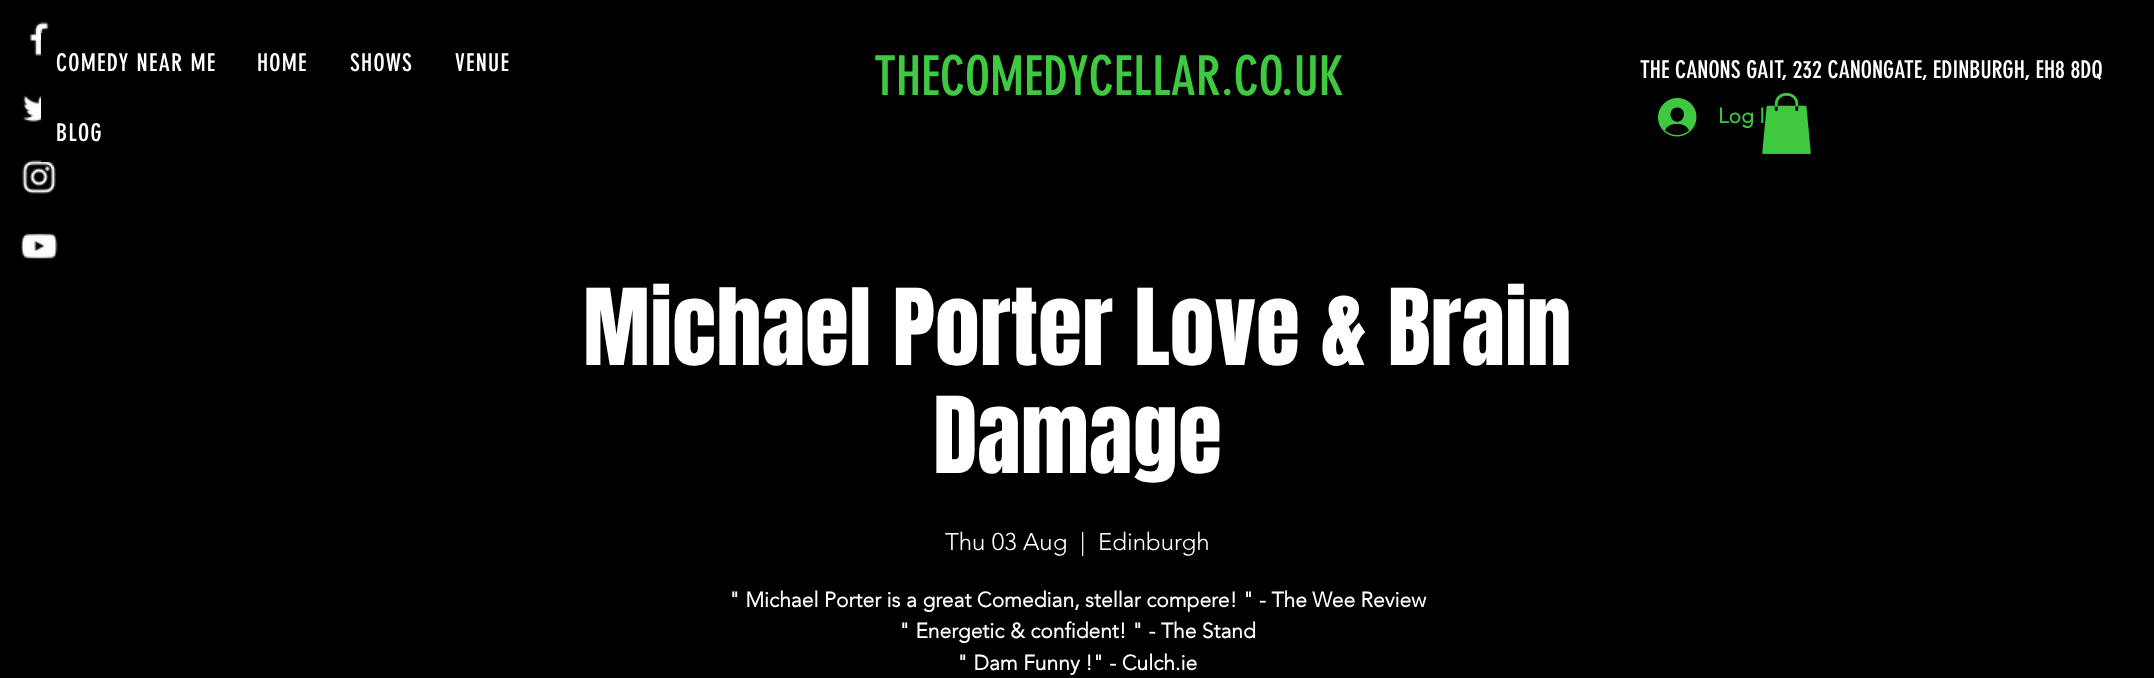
<svg xmlns="http://www.w3.org/2000/svg" width="2154" height="678" viewBox="0 0 2154 678">
  <rect width="100%" height="100%" fill="#000"/>
  <image x="29" y="22" width="20" height="34" href="img/1.png"/>
  <image x="22" y="95" width="19" height="27" href="img/2.png"/>
  <image x="22" y="160" width="34" height="34" href="img/3.png"/>
  <image x="20" y="233" width="38" height="26" href="img/4.png"/>
  <path d="M41 33h10v129H41z" fill="#000"/>
  <image x="1658" y="98" width="39" height="39" href="img/5.png"/>
  <image x="1762" y="93" width="49" height="61" href="img/6.png"/>
  <g font-family="'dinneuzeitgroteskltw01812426'" font-size="24" letter-spacing="1.25" fill="#fff">
    <text x="56" y="71">COMEDY NEAR ME</text>
    <text x="257" y="71">HOME</text>
    <text x="350" y="71">SHOWS</text>
    <text x="455" y="71">VENUE</text>
    <text x="56" y="141">BLOG</text>
  </g>
  <text x="874" y="95" font-family="'dinneuzeitgroteskltw01812426'" font-size="54" fill="#3ec941">THECOMEDYCELLAR.CO.UK</text>
  <text x="1718" y="123" font-family="'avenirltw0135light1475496'" font-size="21" font-weight="bold" fill="#3ec941">Log I</text>
  <text x="1640" y="78" font-family="'dinneuzeitgroteskltw01812426'" font-size="24" fill="#fff">THE CANONS GAIT, 232 CANONGATE, EDINBURGH, EH8 8DQ</text>
  <g font-family="Anton" font-size="90" fill="#fff">
    <text x="583" y="365">Michael Porter Love &amp; Brain</text>
    <text x="933" y="473">Damage</text>
  </g>
  <g font-family="'avenirltw0135light1475496'" font-size="24" font-weight="300" fill="#fff">
    <text x="945" y="550">Thu 03 Aug</text>
    <text x="1080" y="550">|</text>
    <text x="1098" y="550">Edinburgh</text>
  </g>
  <g font-family="'avenirltw0135light1475496'" font-size="21" font-weight="bold" fill="#fff">
    <text x="729" y="607">" Michael Porter is a great Comedian, stellar compere! " - The Wee Review</text>
    <text x="899" y="638">" Energetic &amp; confident! " - The Stand</text>
    <text x="957" y="670">" Dam Funny !" - Culch.ie</text>
  </g>
</svg>
